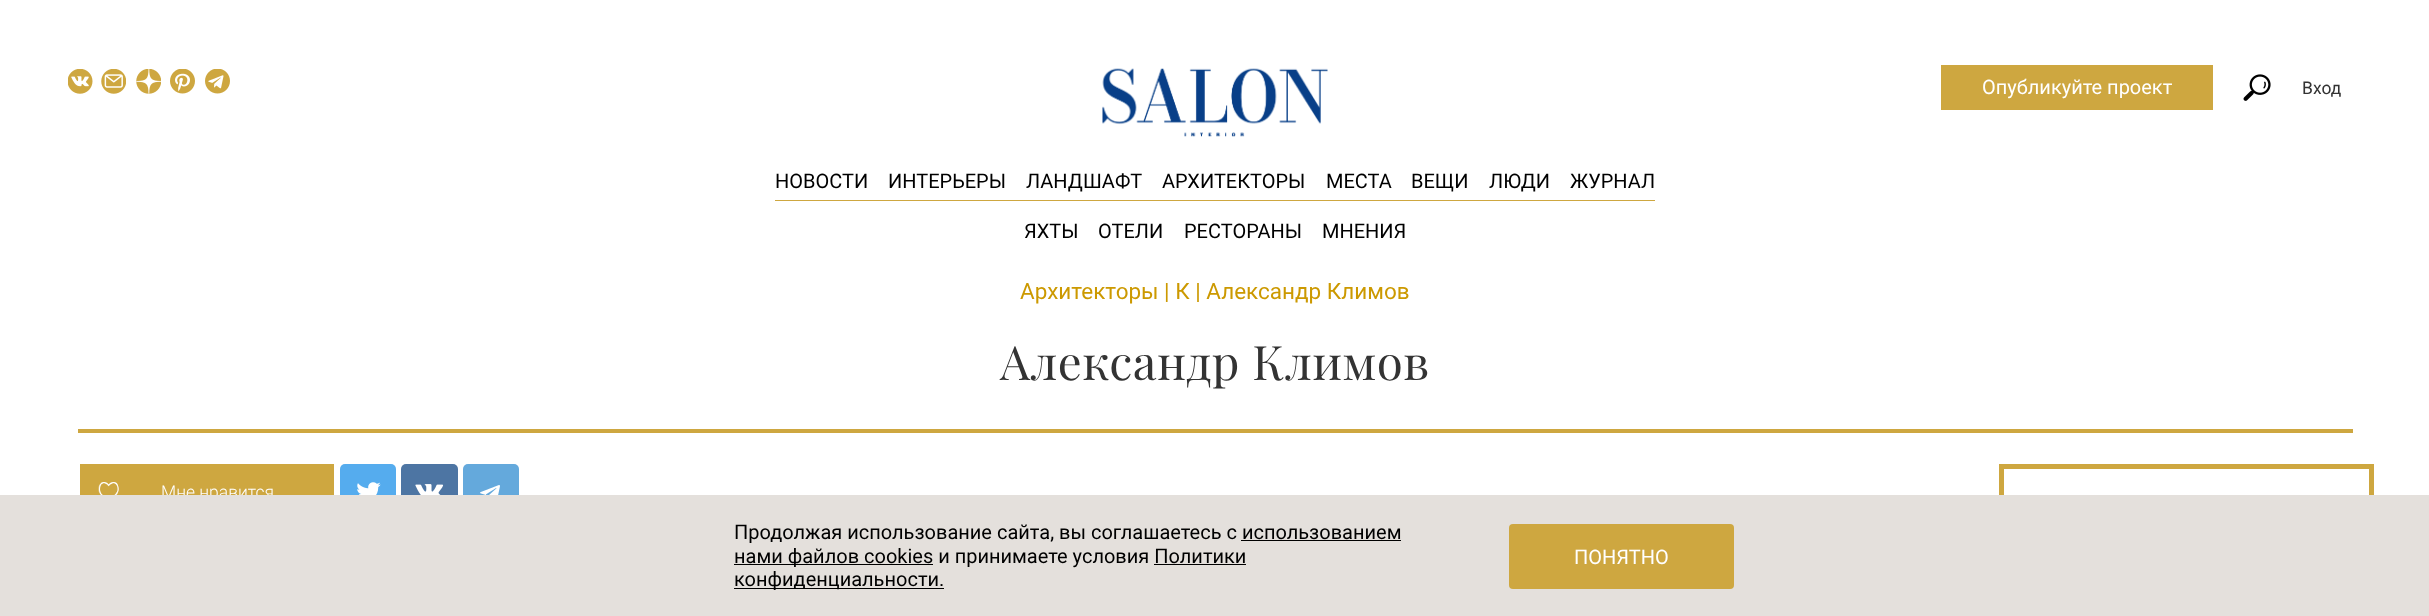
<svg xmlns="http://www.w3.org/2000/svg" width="2429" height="616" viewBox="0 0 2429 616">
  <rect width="100%" height="100%" fill="#fff"/>
  <image x="68" y="69" width="25" height="25" href="img/1.png"/>
  <image x="101" y="69" width="25" height="25" href="img/2.png"/>
  <image x="136" y="69" width="25" height="25" href="img/3.png"/>
  <image x="170" y="69" width="25" height="25" href="img/4.png"/>
  <image x="205" y="69" width="25" height="25" href="img/5.png"/>
  <image x="1102" y="68" width="226" height="69" href="img/6.png"/>
  <path d="M1941 65h272v45H1941z" fill="#cea740"/>
  <image x="2243" y="74" width="28" height="27" href="img/7.png"/>
  <path d="M775 200h880v1H775z" fill="#cea740"/>
  <path d="M78 429h2275v4H78z" fill="#cea740"/>
  <path d="M80 464h254v31H80z" fill="#cea740"/>
  <image x="98" y="482" width="21" height="13" href="img/8.png"/>
  <rect x="340" y="464" width="56" height="56" rx="5" fill="#55acee"/>
  <image x="357" y="482" width="24" height="13" href="img/9.png"/>
  <rect x="401" y="464" width="57" height="56" rx="5" fill="#4d75a3"/>
  <image x="415" y="484" width="29" height="11" href="img/10.png"/>
  <rect x="463" y="464" width="56" height="56" rx="5" fill="#64a9dc"/>
  <image x="480" y="485" width="20" height="10" href="img/11.png"/>
  <path d="M2001.5 466.5h370v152H2001.5z" fill="none" stroke="#cea740" stroke-width="5"/>
  <text x="1982" y="94" font-family="Roboto" font-size="20" fill="#fff">Опубликуйте проект</text>
  <text x="2302" y="94" font-family="Roboto" font-size="17.5" fill="#333">Вход</text>
  <g font-family="Roboto" font-size="20" fill="#000">
    <text x="775" y="188">НОВОСТИ</text>
    <text x="888" y="188">ИНТЕРЬЕРЫ</text>
    <text x="1026" y="188">ЛАНДШАФТ</text>
    <text x="1162" y="188">АРХИТЕКТОРЫ</text>
    <text x="1326" y="188">МЕСТА</text>
    <text x="1411" y="188">ВЕЩИ</text>
    <text x="1489" y="188">ЛЮДИ</text>
    <text x="1570" y="188">ЖУРНАЛ</text>
    <text x="1024" y="238">ЯХТЫ</text>
    <text x="1098" y="238">ОТЕЛИ</text>
    <text x="1184" y="238">РЕСТОРАНЫ</text>
    <text x="1322" y="238">МНЕНИЯ</text>
  </g>
  <text x="1020" y="299" font-family="Roboto" font-size="22.5" fill="#c90">Архитекторы | К | Александр Климов</text>
  <text x="1000" y="380" font-family="Playfair Display" font-size="47.5" letter-spacing="0.5" fill="#333">Александр Климов</text>
  <text x="161" y="498" font-family="Roboto" font-size="17.5" font-weight="300" fill="#fff">Мне нравится</text>
  <path d="M0 495h2429v121H0z" fill="#e4e0dc"/>
  <text x="734" y="539" font-family="Roboto" font-size="20" fill="#000">Продолжая использование сайта, вы соглашаетесь c использованием</text>
  <path d="M1241 540h160v1H1241z" fill="#000"/>
  <path d="M734 564h199v1H734z" fill="#000"/>
  <text x="734" y="563" font-family="Roboto" font-size="20" fill="#000">нами файлов cookies и принимаете условия Политики</text>
  <path d="M1154 564h92v1H1154z" fill="#000"/>
  <path d="M734 588h210v1H734z" fill="#000"/>
  <text x="734" y="586" font-family="Roboto" font-size="20" fill="#000">конфиденциальности.</text>
  <rect x="1509" y="524" width="225" height="65" rx="4" fill="#cea740"/>
  <text x="1574" y="564" font-family="Roboto" font-size="20" fill="#fff">ПОНЯТНО</text>
</svg>
